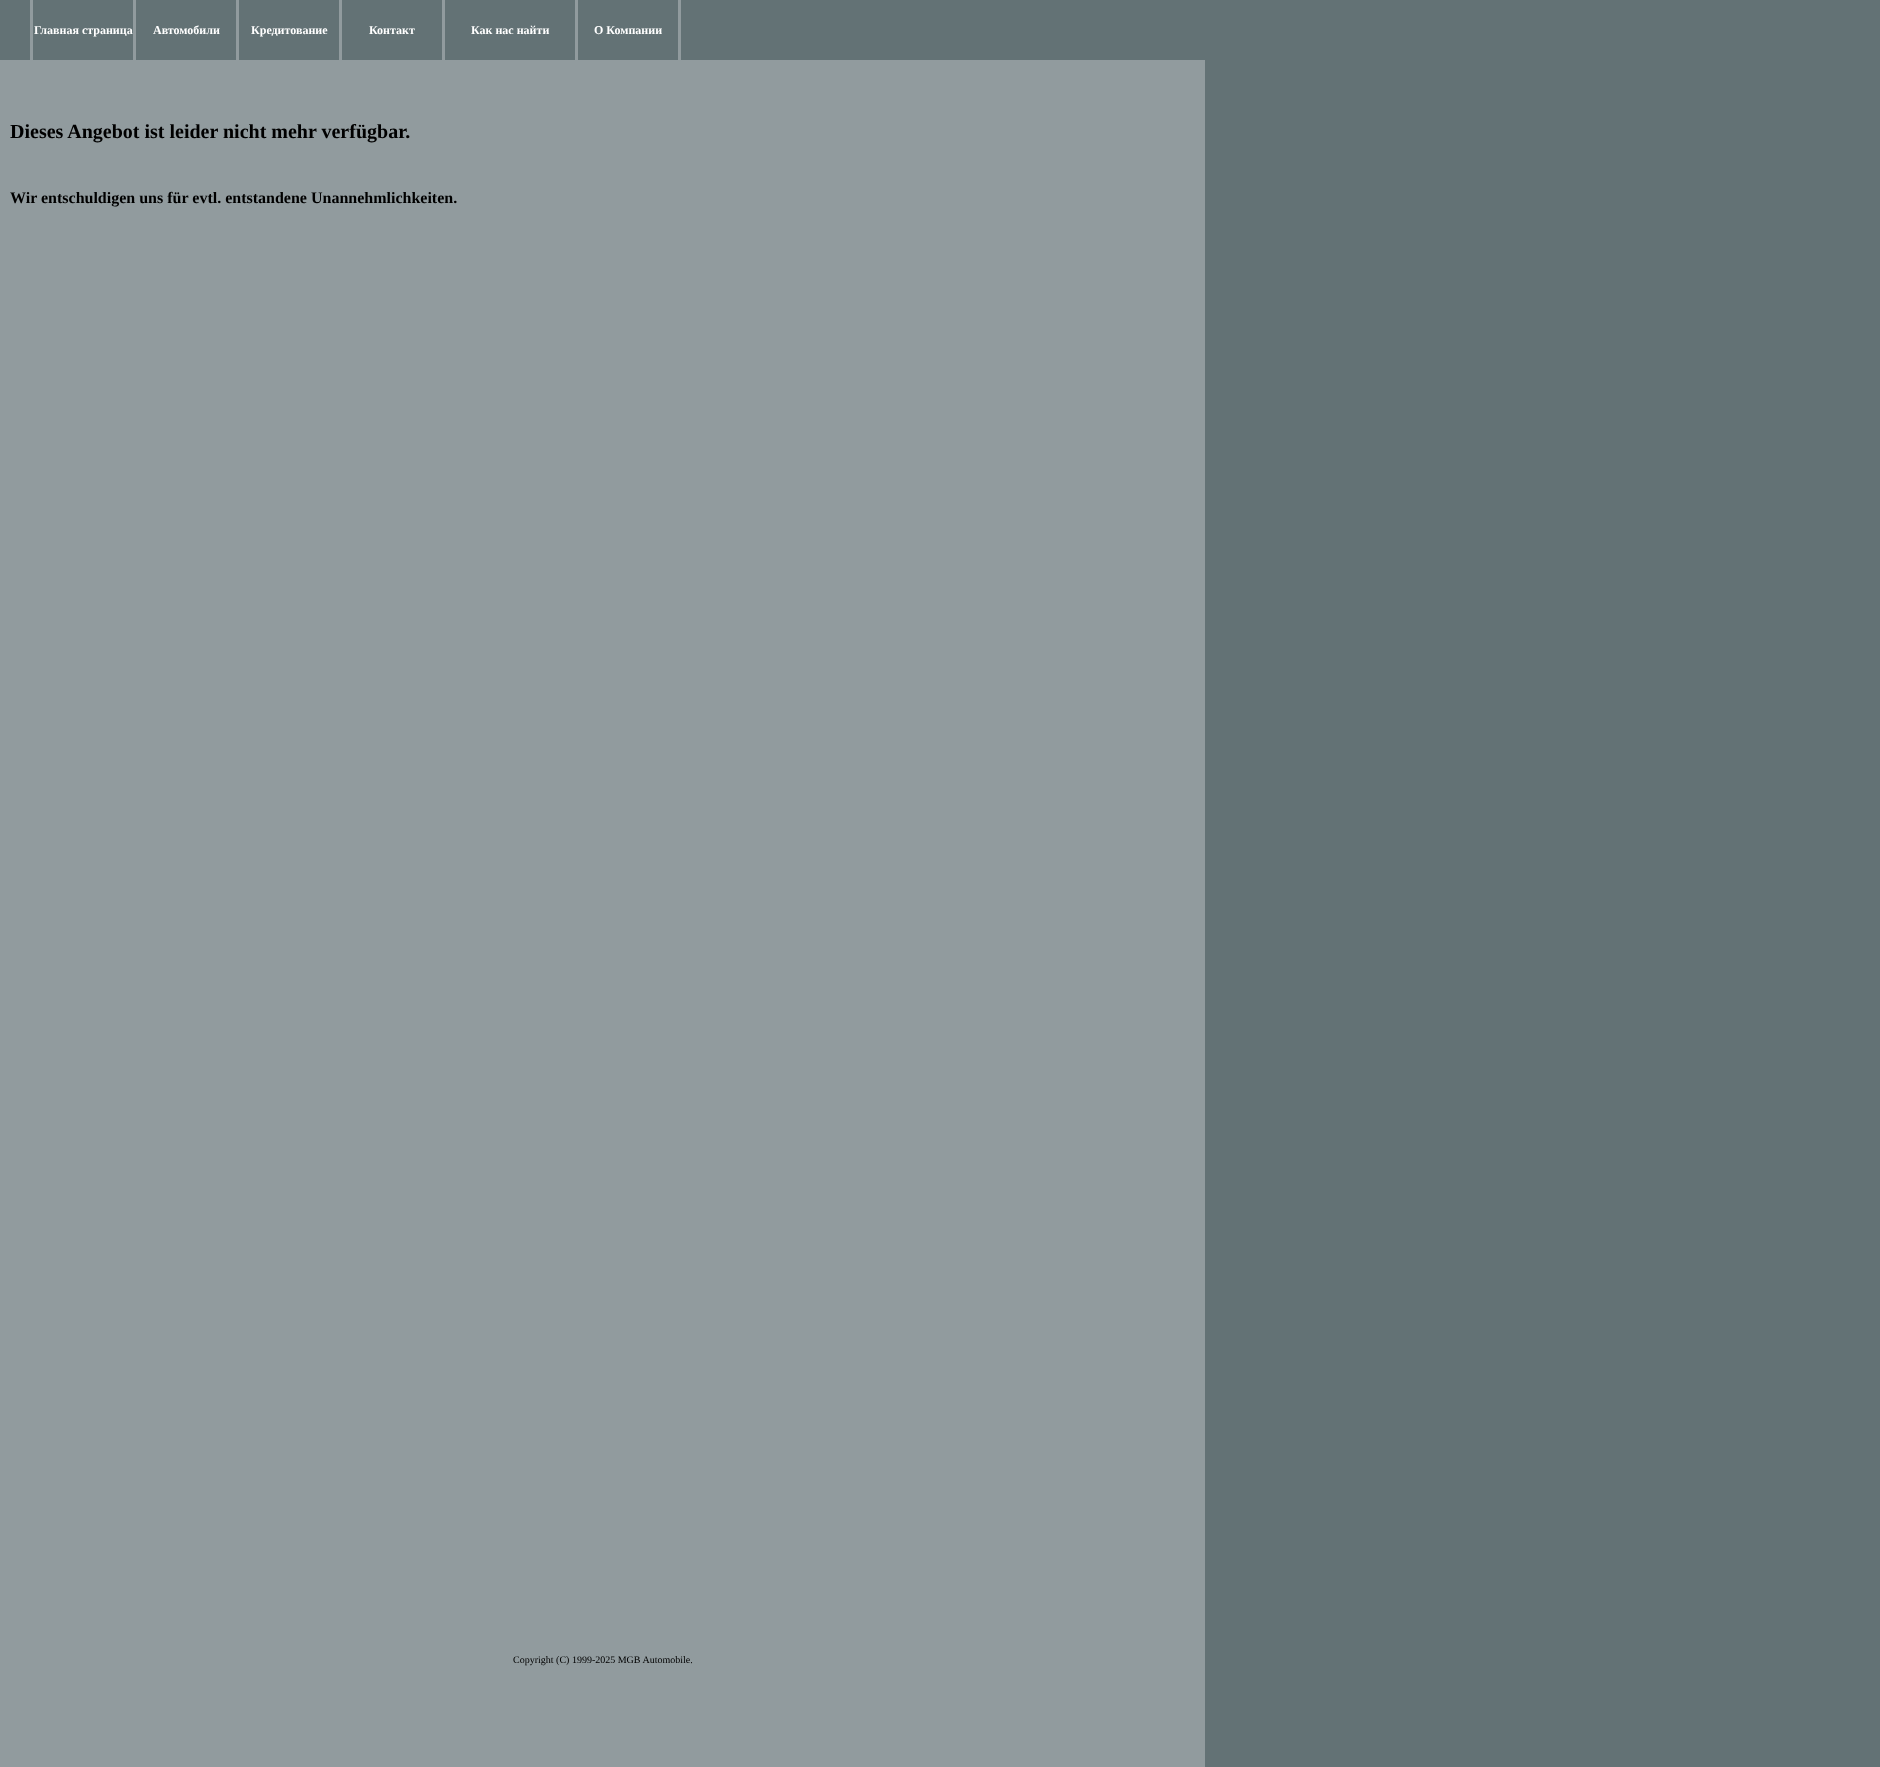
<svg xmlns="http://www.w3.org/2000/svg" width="1880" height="1767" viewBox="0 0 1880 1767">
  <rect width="100%" height="100%" fill="#637275"/>
  <path d="M0 60h1205v1707H0z" fill="#919b9e"/>
  <path d="M30 0h3v60H30z" fill="#919b9e"/>
  <path d="M133 0h3v60H133z" fill="#919b9e"/>
  <path d="M236 0h3v60H236z" fill="#919b9e"/>
  <path d="M339 0h3v60H339z" fill="#919b9e"/>
  <path d="M442 0h3v60H442z" fill="#919b9e"/>
  <path d="M575 0h3v60H575z" fill="#919b9e"/>
  <path d="M678 0h3v60H678z" fill="#919b9e"/>
  <g font-family="Liberation Serif" font-size="12" font-weight="bold" fill="#fff">
    <text x="34" y="34">Главная страница</text>
    <text x="153" y="34">Автомобили</text>
    <text x="251" y="34">Кредитование</text>
    <text x="369" y="34">Контакт</text>
    <text x="471" y="34">Как нас найти</text>
    <text x="594" y="34">О Компании</text>
  </g>
  <text x="10" y="138" font-family="Liberation Serif" font-size="20" font-weight="bold" fill="#000">Dieses Angebot ist leider nicht mehr verfügbar.</text>
  <text x="10" y="203" font-family="Liberation Serif" font-size="16" font-weight="bold" fill="#000">Wir entschuldigen uns für evtl. entstandene Unannehmlichkeiten.</text>
  <text x="513" y="1663" font-family="Liberation Serif" font-size="10" fill="#000">Copyright (C) 1999-2025 MGB Automobile.</text>
</svg>
